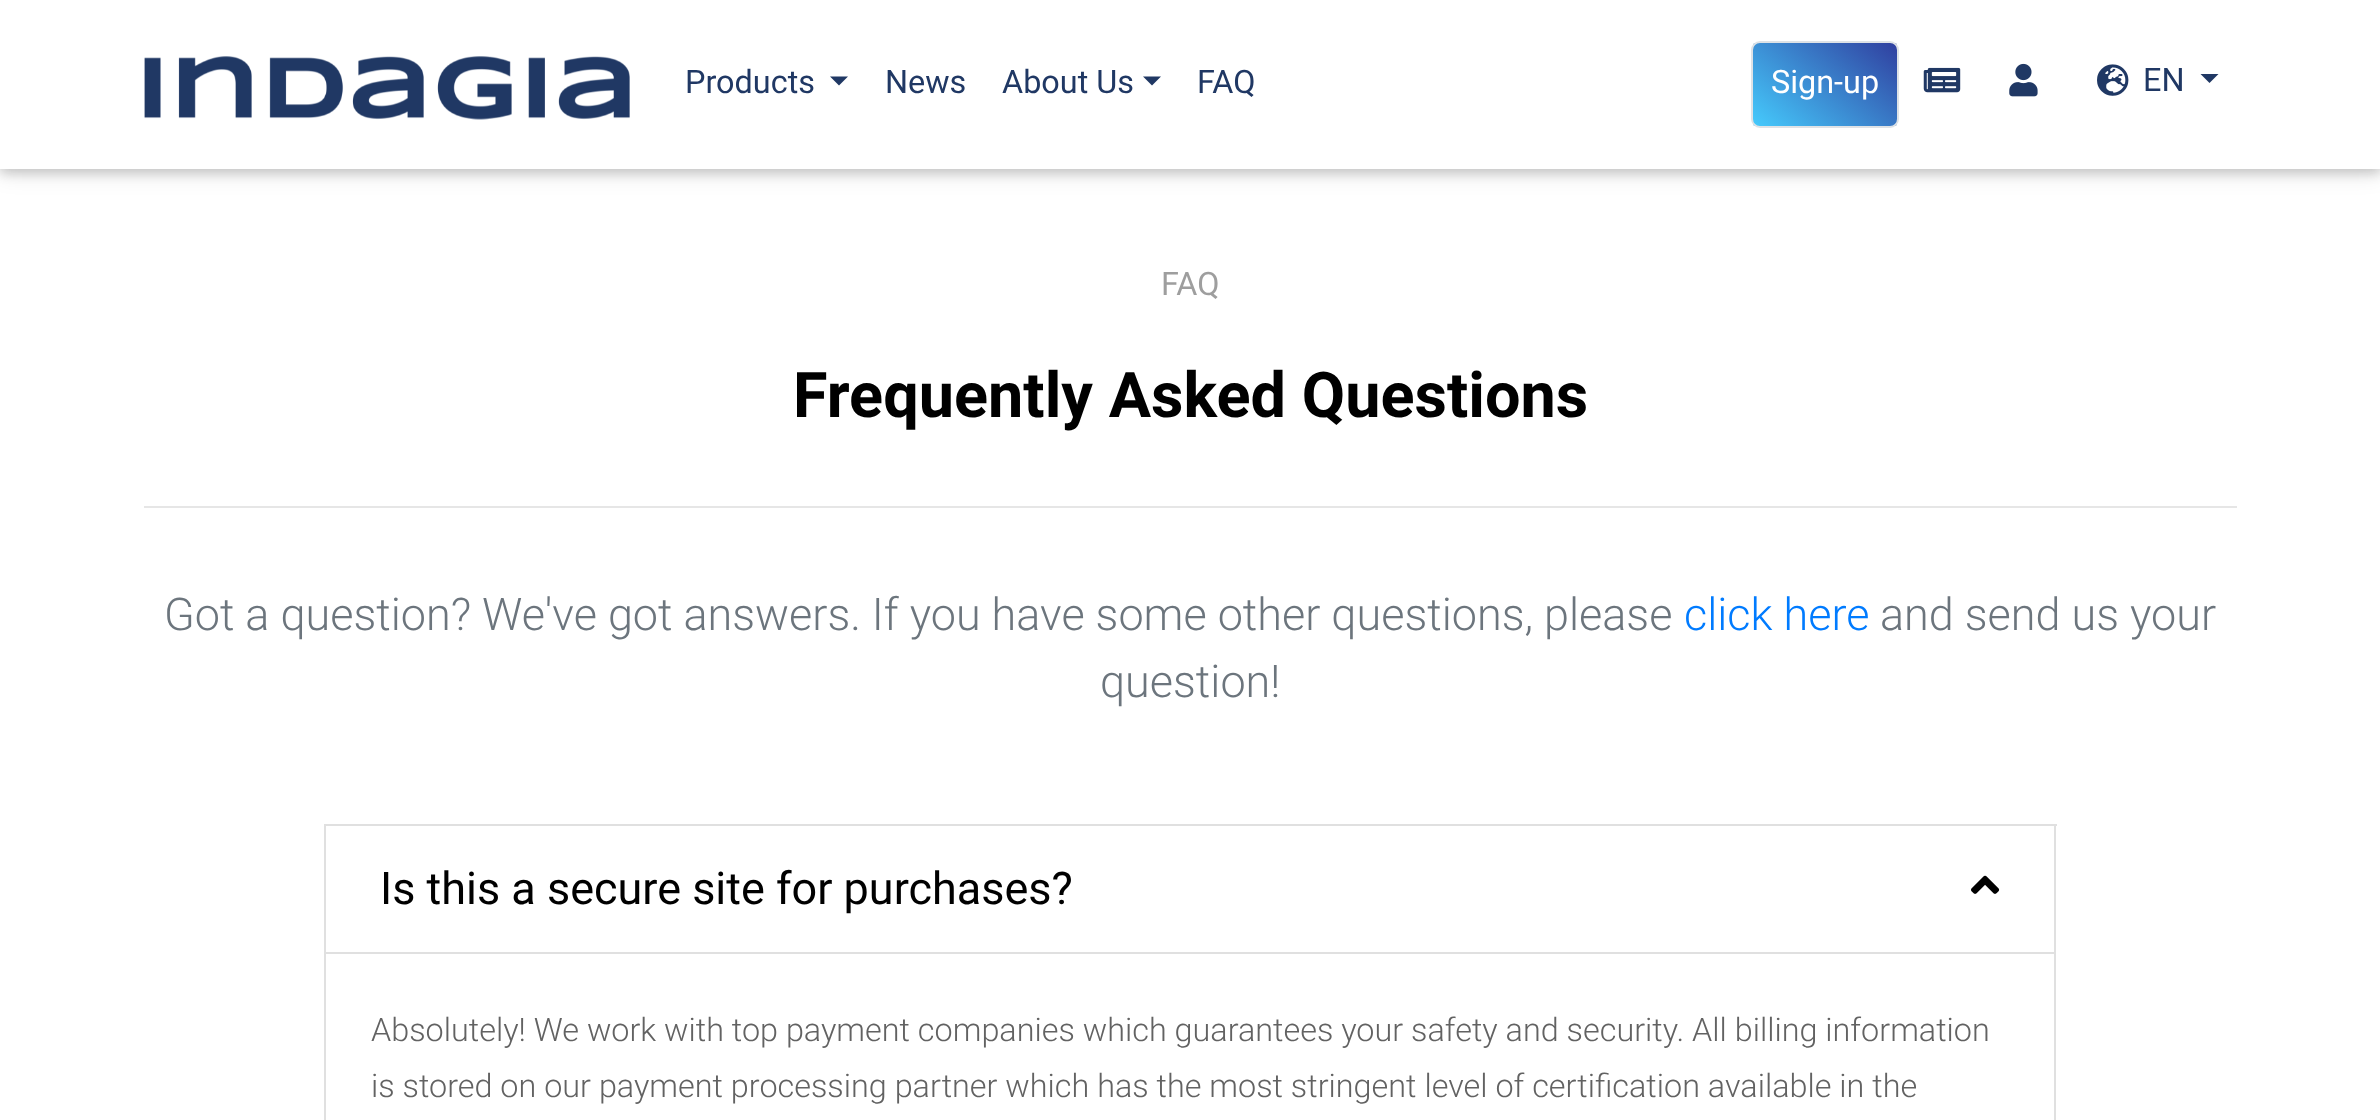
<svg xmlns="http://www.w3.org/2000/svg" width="2380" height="1120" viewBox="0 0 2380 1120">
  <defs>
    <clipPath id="clip1"><rect x="1751" y="41" width="148" height="87" rx="9"/></clipPath>
    <linearGradient id="g1" gradientUnits="userSpaceOnUse" x1="1775" y1="144" x2="1875" y2="24"><stop offset="0" stop-color="#45cafc"/><stop offset="1" stop-color="#303f9f"/></linearGradient>
  </defs>
  <rect width="100%" height="100%" fill="#fff"/>
  <path d="M0 5h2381v168H0z" fill="#0000001f" filter="blur(11px)"/>
  <path d="M0 5h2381v168H0z" fill="#00000029" filter="blur(5.5px)"/>
  <path d="M0 0h2380v169H0z" fill="#fff"/>
  <image x="144" y="56" width="486" height="64" href="img/1.png"/>
  <path d="M830 76.5H848L839 85.5Z" fill="#203864"/>
  <path d="M1143 76.5H1161L1152 85.5Z" fill="#203864"/>
  <g clip-path="url(#clip1)">
    <path d="M1753 43h144v83H1753z" fill="url(#g1)"/>
  </g>
  <rect x="1752" y="42" width="146" height="85" rx="8" fill="none" stroke="#dee2e6" stroke-width="2"/>
  <image x="1923" y="67" width="38" height="26" href="img/2.png"/>
  <image x="2009" y="63" width="29" height="34" href="img/3.png"/>
  <image x="2097" y="64" width="32" height="32" href="img/4.png"/>
  <path d="M2200.5 74H2218.5L2209.5 83Z" fill="#203864"/>
  <path d="M144 506h2093v2H144z" fill="#e6e6e6"/>
  <path d="M324 824h1733v2H324z" fill="#e0e0e0"/>
  <path d="M2054 824h2v296H2054z" fill="#e0e0e0"/>
  <path d="M324 824h2v296H324z" fill="#e0e0e0"/>
  <path d="M326 952h1728v2H326z" fill="#e0e0e0"/>
  <image x="1971" y="875" width="29" height="19" href="img/5.png"/>
  <g font-family="Roboto" font-size="32.4" fill="#203864">
    <text x="685" y="93">Products</text>
    <text x="885" y="93">News</text>
    <text x="1002" y="93">About Us</text>
    <text x="1197" y="93">FAQ</text>
  </g>
  <text x="1771" y="93" font-family="Roboto" font-size="32.4" fill="#fff">Sign-up</text>
  <text x="2143" y="91" font-family="Roboto" font-size="32.4" fill="#203864">EN</text>
  <text x="1161" y="295" font-family="Roboto" font-size="32.4" fill="#9e9e9e">FAQ</text>
  <text x="793" y="417" font-family="Roboto" font-size="63" font-weight="bold" fill="#000">Frequently Asked Questions</text>
  <text x="164" y="630" font-family="Roboto" font-size="45" font-weight="300" fill="#6c757d">Got a question? We've got answers. If you have some other questions, please</text>
  <text x="1684" y="630" font-family="Roboto" font-size="45" font-weight="300" fill="#007bff">click here</text>
  <g font-family="Roboto" font-size="45" font-weight="300" fill="#6c757d">
    <text x="1880" y="630">and send us your</text>
    <text x="1100" y="697">question!</text>
  </g>
  <text x="380" y="904" font-family="Roboto" font-size="45" fill="#000">Is this a secure site for purchases?</text>
  <g font-family="Roboto" font-size="32.4" font-weight="300" fill="#626262">
    <text x="371" y="1041">Absolutely! We work with top payment companies which guarantees your safety and security. All billing information</text>
    <text x="371" y="1097">is stored on our payment processing partner which has the most stringent level of certification available in the</text>
  </g>
</svg>
